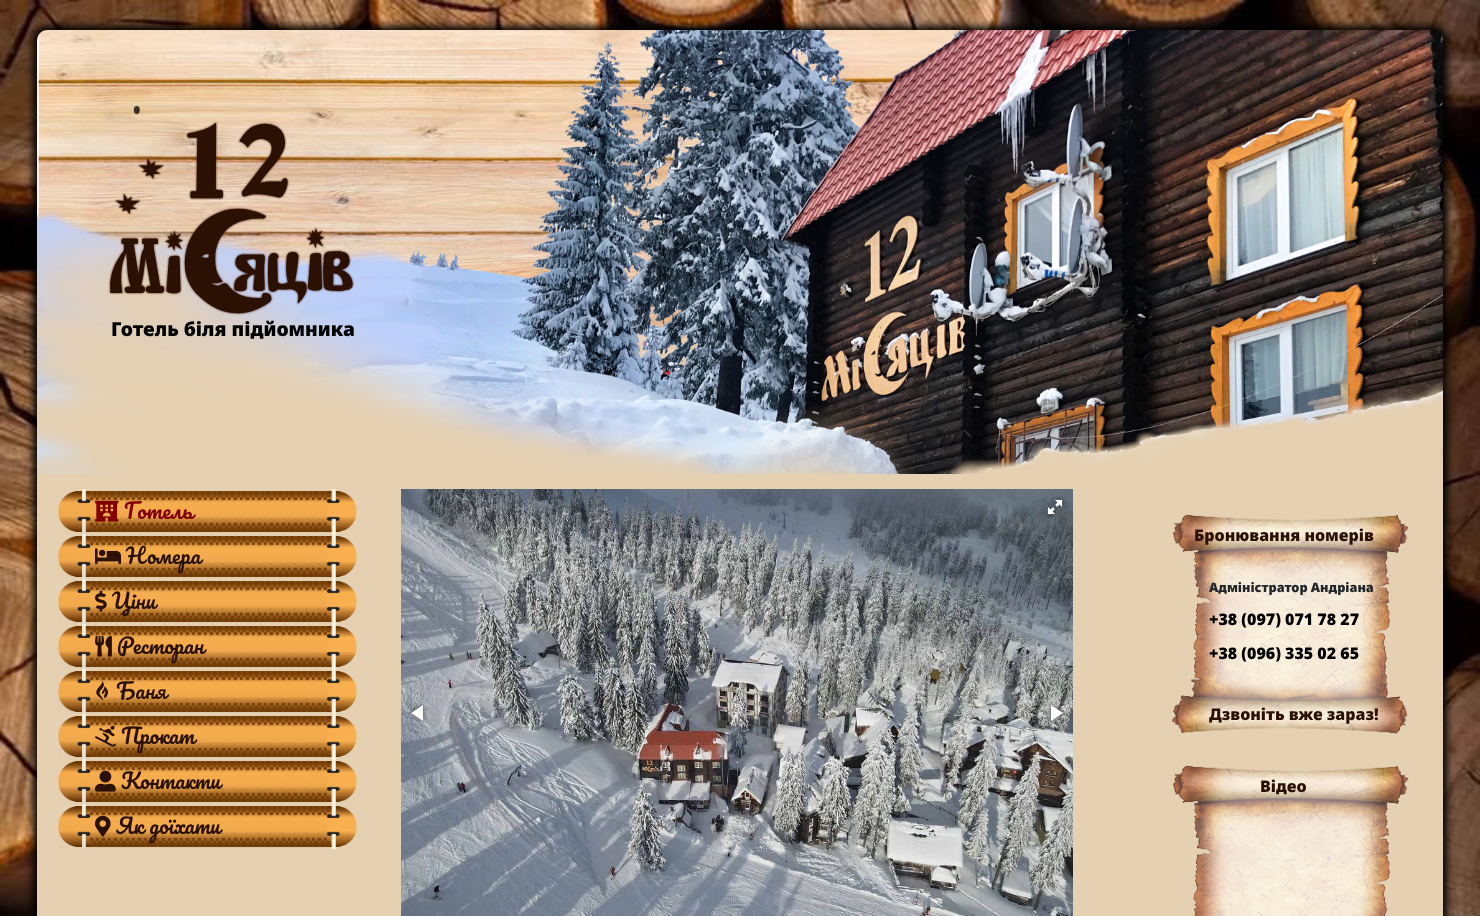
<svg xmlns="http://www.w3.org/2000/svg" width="1480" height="916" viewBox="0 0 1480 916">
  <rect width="100%" height="100%" fill="#fff"/>
  <image x="0" y="0" width="1480" height="916" href="img/1.png"/>
  <rect x="33" y="26" width="1414" height="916" rx="14" fill="#000" filter="blur(4px)"/>
  <image x="37" y="30" width="1406" height="444" href="img/2.png"/>
  <image x="108" y="121" width="247" height="194" href="img/3.png"/>
  <path d="M37 474h1406v442H37z" fill="#e5d0b1"/>
  <image x="90" y="490" width="246" height="43" href="img/4.png"/>
  <image x="58" y="489" width="32" height="45" href="img/5.png"/>
  <image x="95" y="500" width="24" height="22" href="img/6.png"/>
  <image x="327" y="489" width="30" height="45" href="img/7.png"/>
  <image x="90" y="535" width="246" height="43" href="img/8.png"/>
  <image x="58" y="534" width="32" height="45" href="img/9.png"/>
  <image x="95" y="548" width="26" height="16" href="img/10.png"/>
  <image x="327" y="534" width="30" height="45" href="img/7.png"/>
  <image x="90" y="580" width="246" height="43" href="img/11.png"/>
  <image x="58" y="579" width="32" height="45" href="img/9.png"/>
  <image x="95" y="590" width="12" height="22" href="img/12.png"/>
  <image x="327" y="579" width="30" height="45" href="img/7.png"/>
  <image x="90" y="625" width="246" height="43" href="img/13.png"/>
  <image x="58" y="624" width="32" height="45" href="img/5.png"/>
  <image x="95" y="635" width="17" height="22" href="img/14.png"/>
  <image x="327" y="624" width="30" height="45" href="img/7.png"/>
  <image x="90" y="670" width="246" height="43" href="img/15.png"/>
  <image x="58" y="669" width="32" height="45" href="img/9.png"/>
  <image x="96" y="681" width="12" height="20" href="img/16.png"/>
  <image x="327" y="669" width="30" height="45" href="img/7.png"/>
  <image x="90" y="715" width="246" height="43" href="img/17.png"/>
  <image x="58" y="714" width="32" height="45" href="img/9.png"/>
  <image x="95" y="725" width="21" height="22" href="img/18.png"/>
  <image x="327" y="714" width="30" height="45" href="img/7.png"/>
  <image x="90" y="760" width="246" height="43" href="img/8.png"/>
  <image x="58" y="759" width="32" height="45" href="img/5.png"/>
  <image x="95" y="770" width="21" height="22" href="img/19.png"/>
  <image x="327" y="759" width="30" height="45" href="img/7.png"/>
  <image x="90" y="805" width="246" height="43" href="img/20.png"/>
  <image x="58" y="804" width="32" height="45" href="img/5.png"/>
  <image x="95" y="815" width="16" height="22" href="img/21.png"/>
  <image x="327" y="804" width="30" height="45" href="img/7.png"/>
  <image x="401" y="489" width="672" height="427" href="img/22.png"/>
  <image x="1044" y="496" width="22" height="22" href="img/23.png"/>
  <image x="409" y="702" width="19" height="22" href="img/24.png"/>
  <image x="1046" y="702" width="20" height="22" href="img/25.png"/>
  <image x="1172" y="514" width="237" height="220" href="img/26.png"/>
  <image x="1172" y="765" width="237" height="151" href="img/27.png"/>
  <text x="111" y="336" font-family="Noto Sans" font-size="19.25" font-weight="900" fill="#000">Готель біля підйомника</text>
  <text x="124" y="519" font-family="Pacifico" font-size="21" fill="#810000">Готель</text>
  <g font-family="Pacifico" font-size="21" fill="#2b1103">
    <text x="126" y="564">Номера</text>
    <text x="112" y="609">Ціни</text>
    <text x="117" y="654">Ресторан</text>
    <text x="116" y="699">Баня</text>
    <text x="121" y="744">Прокат</text>
    <text x="121" y="789">Контакти</text>
    <text x="116" y="834">Як доїхати</text>
  </g>
  <text x="1194" y="541" font-family="Noto Sans" font-size="16" font-weight="900" fill="#2b1103">Бронювання номерів</text>
  <text x="1209" y="592" font-family="Noto Sans" font-size="12.75" font-weight="900" fill="#212529">Адміністратор Андріана</text>
  <g font-family="Noto Sans" font-size="16" font-weight="900" fill="#000">
    <text x="1209" y="625">+38 (097) 071 78 27</text>
    <text x="1209" y="659">+38 (096) 335 02 65</text>
  </g>
  <g font-family="Noto Sans" font-size="16" font-weight="900" fill="#2b1103">
    <text x="1209" y="720">Дзвоніть вже зараз!</text>
    <text x="1260" y="792">Відео</text>
  </g>
</svg>
